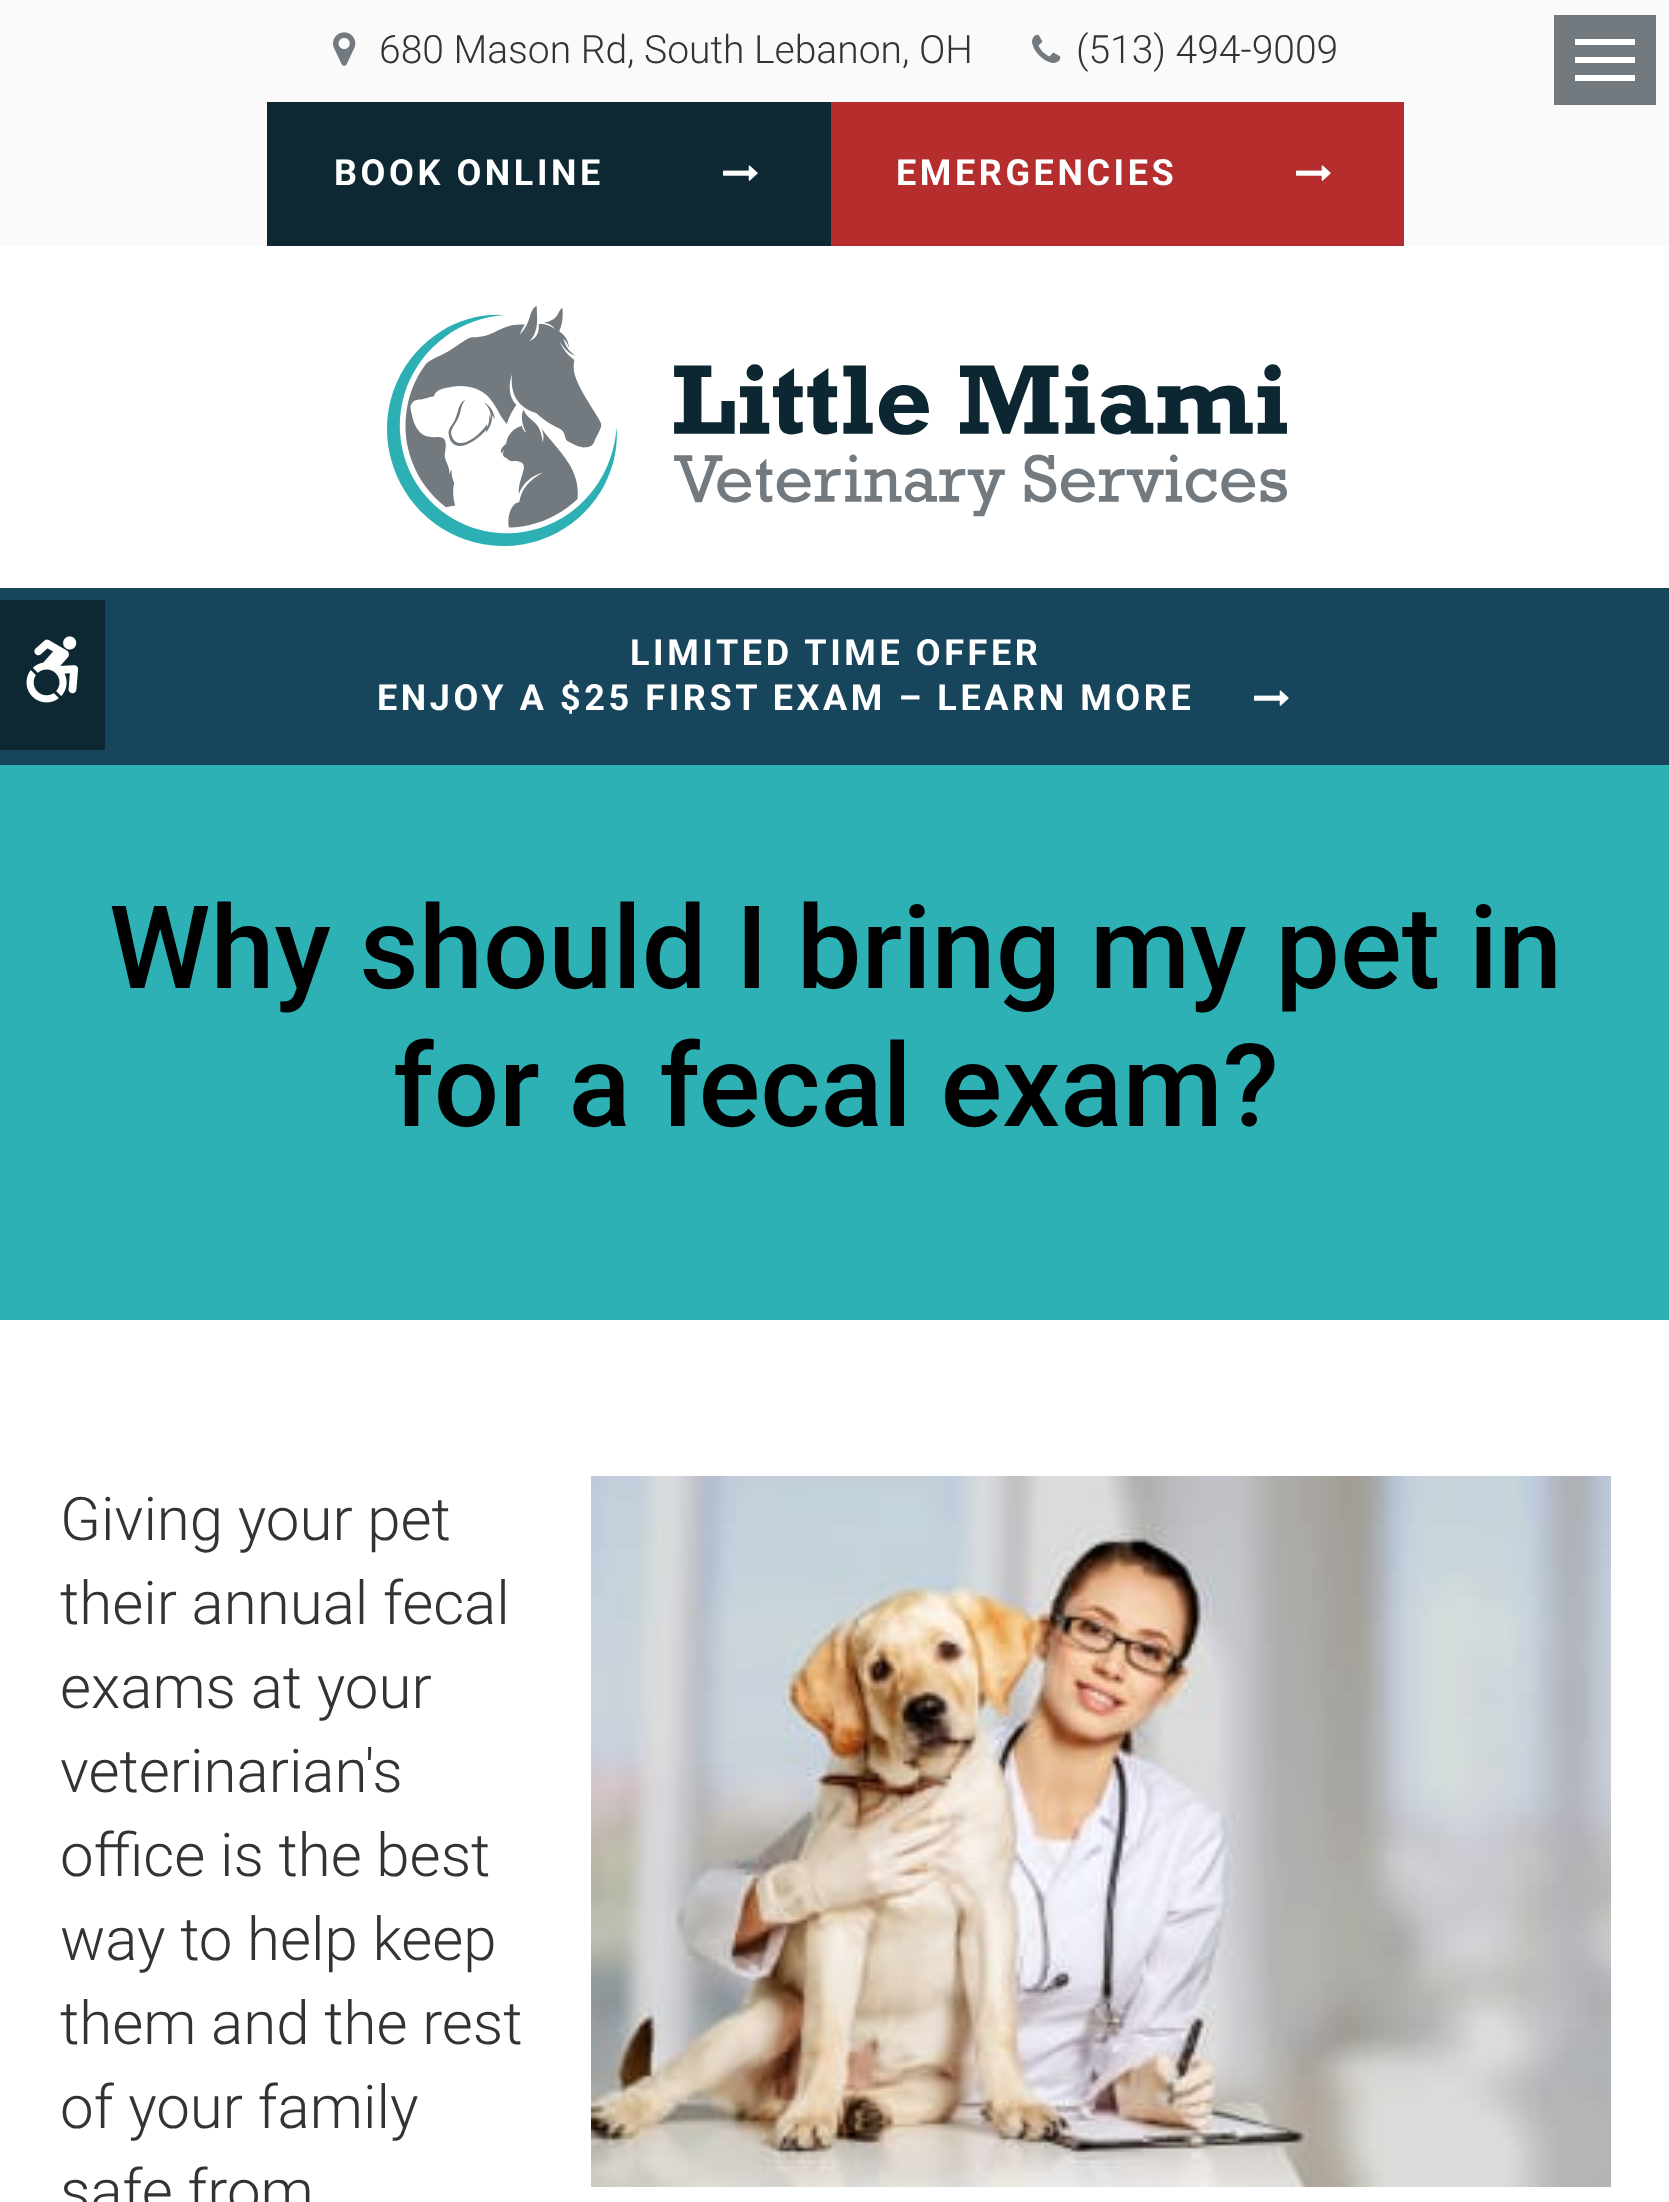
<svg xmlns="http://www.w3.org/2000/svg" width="1669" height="2202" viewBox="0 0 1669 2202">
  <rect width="100%" height="100%" fill="#fff"/>
  <path d="M0 0h1669v246H0z" fill="#fafafa"/>
  <image x="333" y="32" width="23" height="34" href="img/1.png"/>
  <image x="1032" y="34" width="29" height="29" href="img/2.png"/>
  <path d="M267 102h564v144H267z" fill="#0d2733"/>
  <image x="723" y="165" width="35" height="16" href="img/3.png"/>
  <path d="M831 102h573v144H831z" fill="#b52d2d"/>
  <image x="1296" y="165" width="35" height="16" href="img/4.png"/>
  <image x="387" y="306" width="900" height="240" href="img/5.png"/>
  <path d="M0 588h1669v177H0z" fill="#17465c"/>
  <path d="M0 600h105v150H0z" fill="#0d2733"/>
  <image x="26" y="636" width="52" height="67" href="img/6.png"/>
  <path d="M1554 15h102v90H1554z" fill="#72797f"/>
  <path d="M1575 39h60v6H1575z" fill="#fff"/>
  <path d="M1575 57h60v6H1575z" fill="#fff"/>
  <path d="M1575 75h60v6H1575z" fill="#fff"/>
  <image x="1254" y="690" width="35" height="16" href="img/7.png"/>
  <path d="M0 765h1669v555H0z" fill="#2db1b5"/>
  <image x="591" y="1476" width="1020" height="711" href="img/8.png"/>
  <g font-family="Roboto" font-size="39" font-weight="300" fill="#333">
    <text x="379" y="63">680 Mason Rd, South Lebanon, OH</text>
    <text x="1076" y="63">(513) 494-9009</text>
  </g>
  <g font-family="Roboto" font-size="36" font-weight="bold" letter-spacing="3.6" fill="#fff">
    <text x="334" y="185">BOOK ONLINE</text>
    <text x="896" y="185">EMERGENCIES</text>
    <text x="630" y="665">LIMITED TIME OFFER</text>
    <text x="377" y="710">ENJOY A $25 FIRST EXAM – LEARN MORE</text>
  </g>
  <g font-family="Roboto" font-size="115.25" font-weight="500" fill="#000">
    <text x="109" y="988">Why should I bring my pet in</text>
    <text x="393" y="1126">for a fecal exam?</text>
  </g>
  <g font-family="Roboto" font-size="60" font-weight="300" fill="#333">
    <text x="60" y="1540">Giving your pet</text>
    <text x="60" y="1624">their annual fecal</text>
    <text x="60" y="1708">exams at your</text>
    <text x="60" y="1792">veterinarian's</text>
    <text x="60" y="1876">office is the best</text>
    <text x="60" y="1960">way to help keep</text>
    <text x="60" y="2044">them and the rest</text>
    <text x="60" y="2128">of your family</text>
    <text x="60" y="2212">safe from</text>
  </g>
</svg>
